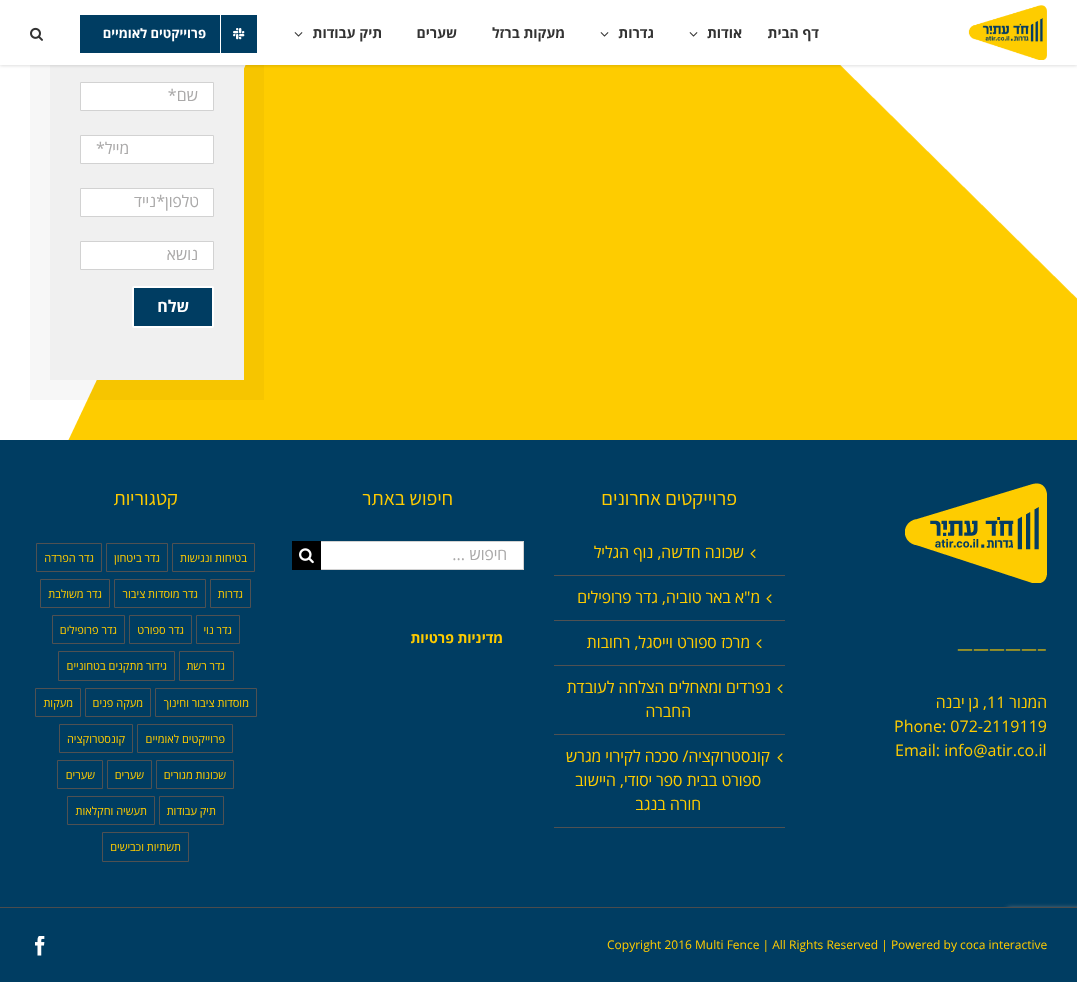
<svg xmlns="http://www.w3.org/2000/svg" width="1077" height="982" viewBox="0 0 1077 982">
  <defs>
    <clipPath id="clip1"><path d="M96 192h102v20H96z"/></clipPath>
  </defs>
  <rect width="100%" height="100%" fill="#fff"/>
  <image x="68" y="65" width="1009" height="375" href="img/5.png"/>
  <path d="M30 65h234v335H30z" fill="#00000008"/>
  <path d="M50 65h194v315H50z" fill="#f0f0f0"/>
  <path d="M0 1h1077v65H0z" fill="#0000001f" filter="blur(1.5px)"/>
  <path d="M0 0h1077v65H0z" fill="#fff"/>
  <image x="968" y="5" width="79" height="55" href="img/1.png"/>
  <image x="689" y="32" width="9" height="5" href="img/2.png"/>
  <image x="600" y="32" width="9" height="5" href="img/2.png"/>
  <image x="294" y="32" width="9" height="5" href="img/2.png"/>
  <rect x="79" y="14" width="179" height="40" rx="1" fill="#003d62" stroke="#fff" stroke-width="2"/>
  <path d="M220 15h1v38H220z" fill="#fff"/>
  <image x="233" y="28" width="12" height="12" href="img/3.png"/>
  <image x="30" y="27" width="13" height="14" href="img/4.png"/>
  <path d="M80.5 82.5h133v28H80.5z" fill="#fff" stroke="#d2d2d2"/>
  <path d="M80.5 135.5h133v28H80.5z" fill="#fff" stroke="#d2d2d2"/>
  <path d="M80.5 188.5h133v28H80.5z" fill="#fff" stroke="#d2d2d2"/>
  <path d="M80.5 241.5h133v28H80.5z" fill="#fff" stroke="#d2d2d2"/>
  <rect x="133" y="287" width="80" height="40" rx="1" fill="#003d62" stroke="#fff" stroke-width="2"/>
  <path d="M0 440h1077v467H0z" fill="#003d62"/>
  <image x="905" y="483" width="142" height="100" href="img/6.png"/>
  <path d="M554 575h231v1H554z" fill="#505152"/>
  <image x="750" y="549" width="6" height="10" href="img/7.png"/>
  <path d="M554 620h231v1H554z" fill="#505152"/>
  <image x="766" y="594" width="6" height="10" href="img/7.png"/>
  <path d="M554 665h231v1H554z" fill="#505152"/>
  <image x="756" y="639" width="6" height="10" href="img/7.png"/>
  <path d="M554 734h231v1H554z" fill="#505152"/>
  <image x="777" y="684" width="6" height="10" href="img/7.png"/>
  <path d="M554 827h231v1H554z" fill="#505152"/>
  <image x="777" y="753" width="6" height="10" href="img/7.png"/>
  <path d="M321 542h202v27H321z" fill="#fff"/>
  <path d="M321 541h203v1H321z" fill="#d2d2d2"/>
  <path d="M523 541h1v29H523z" fill="#d2d2d2"/>
  <path d="M321 569h203v1H321z" fill="#d2d2d2"/>
  <path d="M292 541h29v29H292z" fill="#000"/>
  <image x="299" y="548" width="15" height="16" href="img/8.png"/>
  <path d="M172.5 543.5h82v28H172.5z" fill="none" stroke="#505152"/>
  <path d="M106.5 543.5h61v28H106.5z" fill="none" stroke="#505152"/>
  <path d="M36.5 543.5h65v28H36.5z" fill="none" stroke="#505152"/>
  <path d="M210.5 579.5h40v28H210.5z" fill="none" stroke="#505152"/>
  <path d="M114.5 579.5h91v28H114.5z" fill="none" stroke="#505152"/>
  <path d="M40.5 579.5h69v28H40.5z" fill="none" stroke="#505152"/>
  <path d="M196.5 615.5h43v28H196.5z" fill="none" stroke="#505152"/>
  <path d="M129.5 615.5h62v28H129.5z" fill="none" stroke="#505152"/>
  <path d="M52.5 615.5h72v28H52.5z" fill="none" stroke="#505152"/>
  <path d="M179.5 651.5h54v29H179.5z" fill="none" stroke="#505152"/>
  <path d="M58.5 651.5h116v29H58.5z" fill="none" stroke="#505152"/>
  <path d="M155.5 688.5h101v28H155.5z" fill="none" stroke="#505152"/>
  <path d="M85.5 688.5h65v28H85.5z" fill="none" stroke="#505152"/>
  <path d="M35.5 688.5h45v28H35.5z" fill="none" stroke="#505152"/>
  <path d="M137.5 724.5h95v28H137.5z" fill="none" stroke="#505152"/>
  <path d="M59.5 724.5h73v28H59.5z" fill="none" stroke="#505152"/>
  <path d="M156.5 760.5h77v28H156.5z" fill="none" stroke="#505152"/>
  <path d="M107.5 760.5h44v28H107.5z" fill="none" stroke="#505152"/>
  <path d="M57.5 760.5h45v28H57.5z" fill="none" stroke="#505152"/>
  <path d="M159.5 796.5h64v28H159.5z" fill="none" stroke="#505152"/>
  <path d="M67.5 796.5h87v28H67.5z" fill="none" stroke="#505152"/>
  <path d="M102.5 832.5h86v29H102.5z" fill="none" stroke="#505152"/>
  <rect x="1007" y="908" width="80" height="60" rx="2" fill="#808080" filter="blur(2.5px)"/>
  <path d="M0 908h1077v74H0z" fill="#003d62"/>
  <path d="M0 907h1077v1H0z" fill="#4b4c4d"/>
  <image x="35" y="936" width="10" height="20" href="img/9.png"/>
  <g font-family="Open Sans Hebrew" font-size="14" font-weight="bold" direction="rtl" fill="#333">
    <text x="819" y="38">דף הבית</text>
    <text x="742" y="38">אודות</text>
    <text x="654" y="38">גדרות</text>
    <text x="565" y="38">מעקות ברזל</text>
    <text x="457" y="38">שערים</text>
    <text x="382" y="38">תיק עבודות</text>
  </g>
  <text x="206" y="38" font-family="Open Sans Hebrew" font-size="13" font-weight="bold" direction="rtl" fill="#fff">פרוייקטים לאומיים</text>
  <g font-family="Open Sans Hebrew" font-size="16" direction="rtl" fill="#aaa9a9">
    <text x="198" y="101">שם*</text>
    <text x="129" y="154">מייל*</text>
  </g>
  <g clip-path="url(#clip1)">
    <text x="199" y="207" font-family="Open Sans Hebrew" font-size="16" direction="rtl" fill="#aaa9a9">טלפון*</text>
  </g>
  <g font-family="Open Sans Hebrew" font-size="16" direction="rtl" fill="#aaa9a9">
    <text x="156" y="207">נייד</text>
    <text x="198" y="260">נושא</text>
  </g>
  <text x="189" y="312" font-family="Open Sans Hebrew" font-size="16" font-weight="bold" direction="rtl" fill="#fff">שלח</text>
  <text x="957" y="655" font-family="Assistant" font-size="20" font-weight="200" fill="#fc0">—————–</text>
  <text x="1047" y="708" font-family="Open Sans Hebrew" font-size="16" direction="rtl" fill="#fc0">המנור</text>
  <text x="987" y="708" font-family="Open Sans Hebrew" font-size="16" fill="#fc0">11</text>
  <text x="987" y="708" font-family="Open Sans Hebrew" font-size="16" direction="rtl" fill="#fc0">, גן יבנה</text>
  <g font-family="Open Sans Hebrew" font-size="16" fill="#fc0">
    <text x="894" y="732">Phone: 072-2119119</text>
    <text x="895" y="756">Email: info@atir.co.il</text>
  </g>
  <text x="737" y="505" font-family="Assistant" font-size="20" font-weight="200" direction="rtl" fill="#fc0">פרוייקטים אחרונים</text>
  <g font-family="Open Sans Hebrew" font-size="16" direction="rtl" fill="#fc0">
    <text x="744" y="558">שכונה חדשה, נוף הגליל</text>
    <text x="760" y="603">מ"א באר טוביה, גדר פרופילים</text>
    <text x="750" y="648">מרכז ספורט וייסגל, רחובות</text>
    <text x="771" y="693">נפרדים ומאחלים הצלחה לעובדת</text>
    <text x="691" y="717">החברה</text>
    <text x="770" y="762">קונסטרוקציה/ סככה לקירוי מגרש</text>
    <text x="761" y="786">ספורט בבית ספר יסודי, היישוב</text>
    <text x="701" y="810">חורה בנגב</text>
  </g>
  <text x="453" y="505" font-family="Assistant" font-size="20" font-weight="200" direction="rtl" fill="#fc0">חיפוש באתר</text>
  <text x="507" y="560" font-family="Open Sans Hebrew" font-size="16" direction="rtl" fill="#aaa9a9">חיפוש ...</text>
  <text x="503" y="643" font-family="Open Sans Hebrew" font-size="14" font-weight="bold" direction="rtl" fill="#fc0">מדיניות פרטיות</text>
  <text x="178" y="505" font-family="Assistant" font-size="20" font-weight="200" direction="rtl" fill="#fc0">קטגוריות</text>
  <g font-family="Open Sans" font-size="11" direction="rtl" fill="#fc0">
    <text x="247" y="562">בטיחות ונגישות</text>
    <text x="160" y="562">גדר ביטחון</text>
    <text x="94" y="562">גדר הפרדה</text>
    <text x="243" y="598">גדרות</text>
    <text x="198" y="598">גדר מוסדות ציבור</text>
    <text x="102" y="598">גדר משולבת</text>
    <text x="232" y="634">גדר נוי</text>
    <text x="184" y="634">גדר ספורט</text>
    <text x="117" y="634">גדר פרופילים</text>
    <text x="225" y="670">גדר רשת</text>
    <text x="167" y="670">גידור מתקנים בטחוניים</text>
    <text x="249" y="707">מוסדות ציבור וחינוך</text>
    <text x="143" y="707">מעקה פנים</text>
    <text x="73" y="707">מעקות</text>
    <text x="225" y="743">פרוייקטים לאומיים</text>
    <text x="125" y="743">קונסטרוקציה</text>
    <text x="226" y="779">שכונות מגורים</text>
    <text x="144" y="779">שערים</text>
    <text x="95" y="779">שערים</text>
    <text x="216" y="815">תיק עבודות</text>
    <text x="147" y="815">תעשיה וחקלאות</text>
    <text x="181" y="851">תשתיות וכבישים</text>
  </g>
  <text x="607" y="949" font-family="Open Sans Hebrew" font-size="12" fill="#fc0">Copyright 2016 Multi Fence | All Rights Reserved | Powered by coca interactive</text>
</svg>
